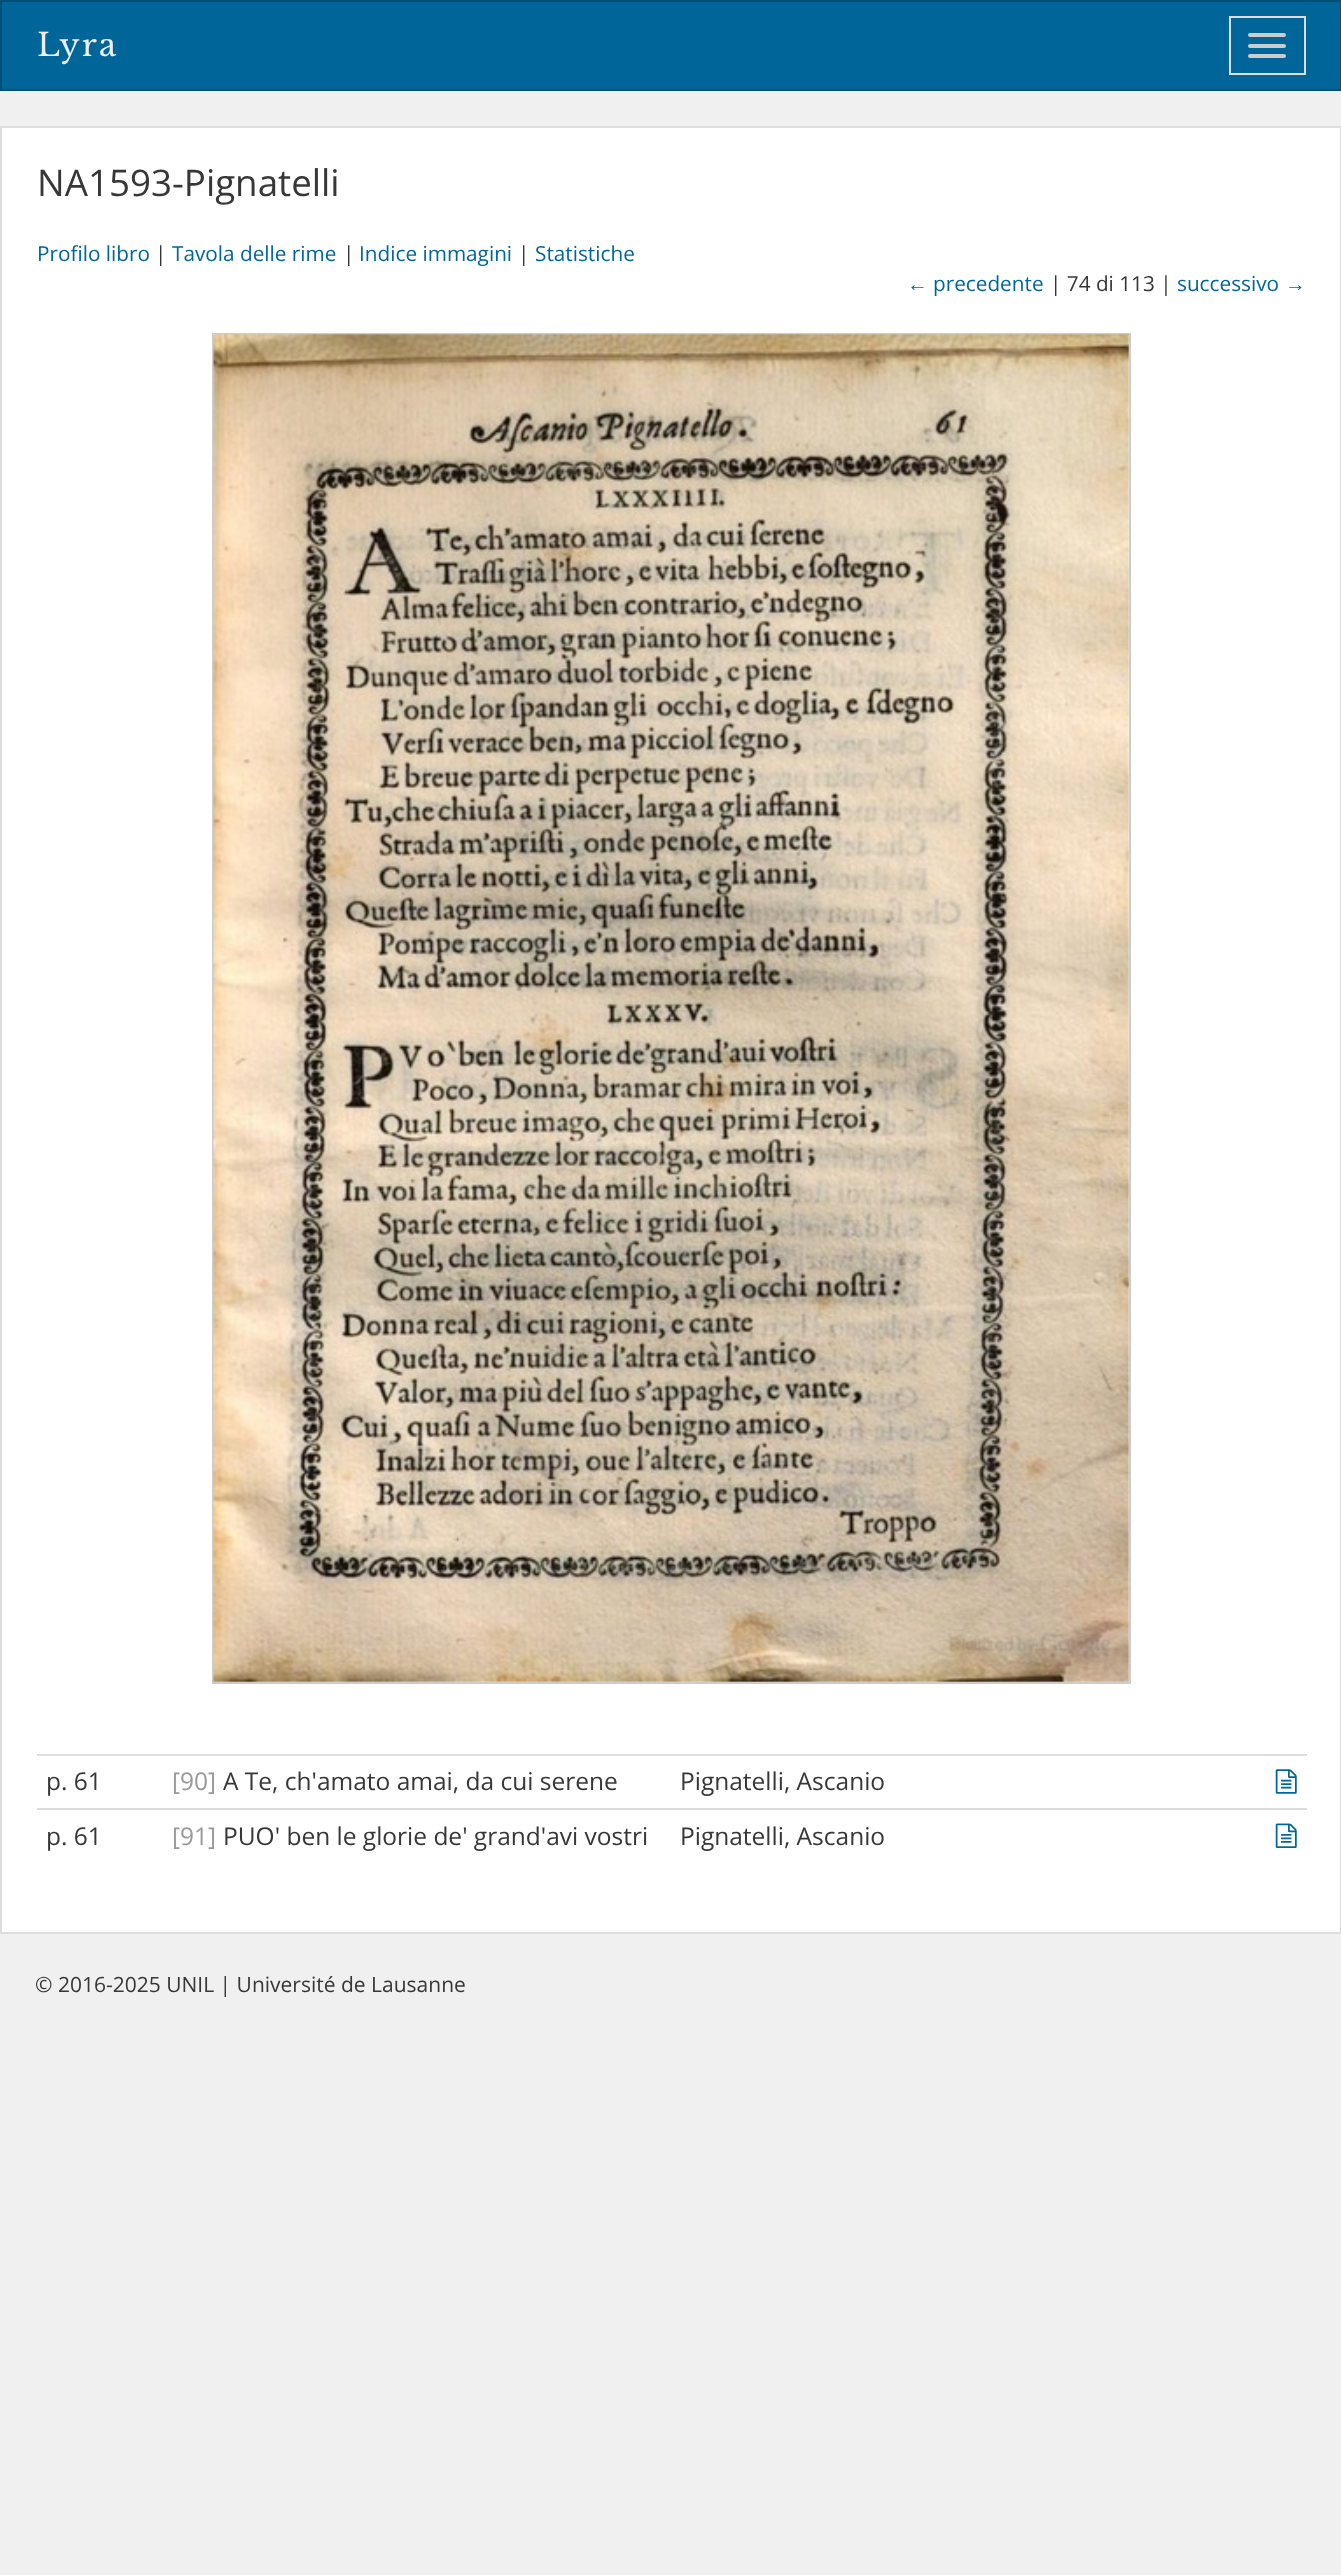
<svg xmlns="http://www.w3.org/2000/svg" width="1341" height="2575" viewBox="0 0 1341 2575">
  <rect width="100%" height="100%" fill="#f0f0f0"/>
  <path d="M1 1h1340v89H1z" fill="#069" stroke="#004e75" stroke-width="2"/>
  <path d="M1230 17h75v57H1230z" fill="none" stroke="#ddd" stroke-width="2"/>
  <rect x="1248" y="33" width="38" height="4" rx="2" fill="#ccc"/>
  <rect x="1248" y="44" width="38" height="4" rx="2" fill="#ccc"/>
  <rect x="1248" y="54" width="38" height="4" rx="2" fill="#ccc"/>
  <path d="M1 127h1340v1806H1z" fill="#fff" stroke="#ddd" stroke-width="2"/>
  <path d="M213 334h917v1349H213z" fill="none" stroke="#ccc" stroke-width="2"/>
  <image x="213" y="334" width="916" height="1348" href="img/1.png"/>
  <path d="M37 1754h1270v2H37z" fill="#ddd"/>
  <image x="1275" y="1769" width="22" height="25" href="img/2.png"/>
  <path d="M37 1808h1270v2H37z" fill="#ddd"/>
  <image x="1275" y="1823" width="22" height="25" href="img/3.png"/>
  <text x="37" y="56" font-family="Libre Baskerville" font-size="31.5" letter-spacing="2" fill="#eee">Lyra</text>
  <text x="37" y="196" font-family="Open Sans" font-size="36.75" fill="#373737">NA1593-Pignatelli</text>
  <text x="37" y="261" font-family="Open Sans" font-size="20.75" fill="#069">Profilo libro</text>
  <text x="155" y="261" font-family="Open Sans" font-size="20.75" fill="#373737">|</text>
  <text x="172" y="261" font-family="Open Sans" font-size="20.75" fill="#069">Tavola delle rime</text>
  <text x="343" y="261" font-family="Open Sans" font-size="20.75" fill="#373737">|</text>
  <text x="359" y="261" font-family="Open Sans" font-size="20.75" fill="#069">Indice immagini</text>
  <text x="518" y="261" font-family="Open Sans" font-size="20.75" fill="#373737">|</text>
  <text x="535" y="261" font-family="Open Sans" font-size="20.75" fill="#069">Statistiche</text>
  <text x="907" y="291" font-family="Liberation Sans" font-size="20.75" fill="#069">←</text>
  <text x="933" y="291" font-family="Open Sans" font-size="20.75" fill="#069">precedente</text>
  <text x="1050" y="291" font-family="Open Sans" font-size="20.75" fill="#373737">| 74 di 113 |</text>
  <text x="1177" y="291" font-family="Open Sans" font-size="20.75" fill="#069">successivo</text>
  <text x="1285" y="291" font-family="Liberation Sans" font-size="20.75" fill="#069">→</text>
  <text x="46" y="1790" font-family="Open Sans" font-size="24.5" fill="#373737">p. 61</text>
  <text x="172" y="1790" font-family="Open Sans" font-size="24.5" fill="#999">[90]</text>
  <g font-family="Open Sans" font-size="24.5" fill="#373737">
    <text x="223" y="1790">A Te, ch'amato amai, da cui serene</text>
    <text x="680" y="1790">Pignatelli, Ascanio</text>
    <text x="46" y="1845">p. 61</text>
  </g>
  <text x="172" y="1845" font-family="Open Sans" font-size="24.5" fill="#999">[91]</text>
  <g font-family="Open Sans" font-size="24.5" fill="#373737">
    <text x="223" y="1845">PUO' ben le glorie de' grand'avi vostri</text>
    <text x="680" y="1845">Pignatelli, Ascanio</text>
  </g>
  <text x="35" y="1992" font-family="Open Sans" font-size="21" fill="#373737">© 2016-2025 UNIL | Université de Lausanne</text>
</svg>
